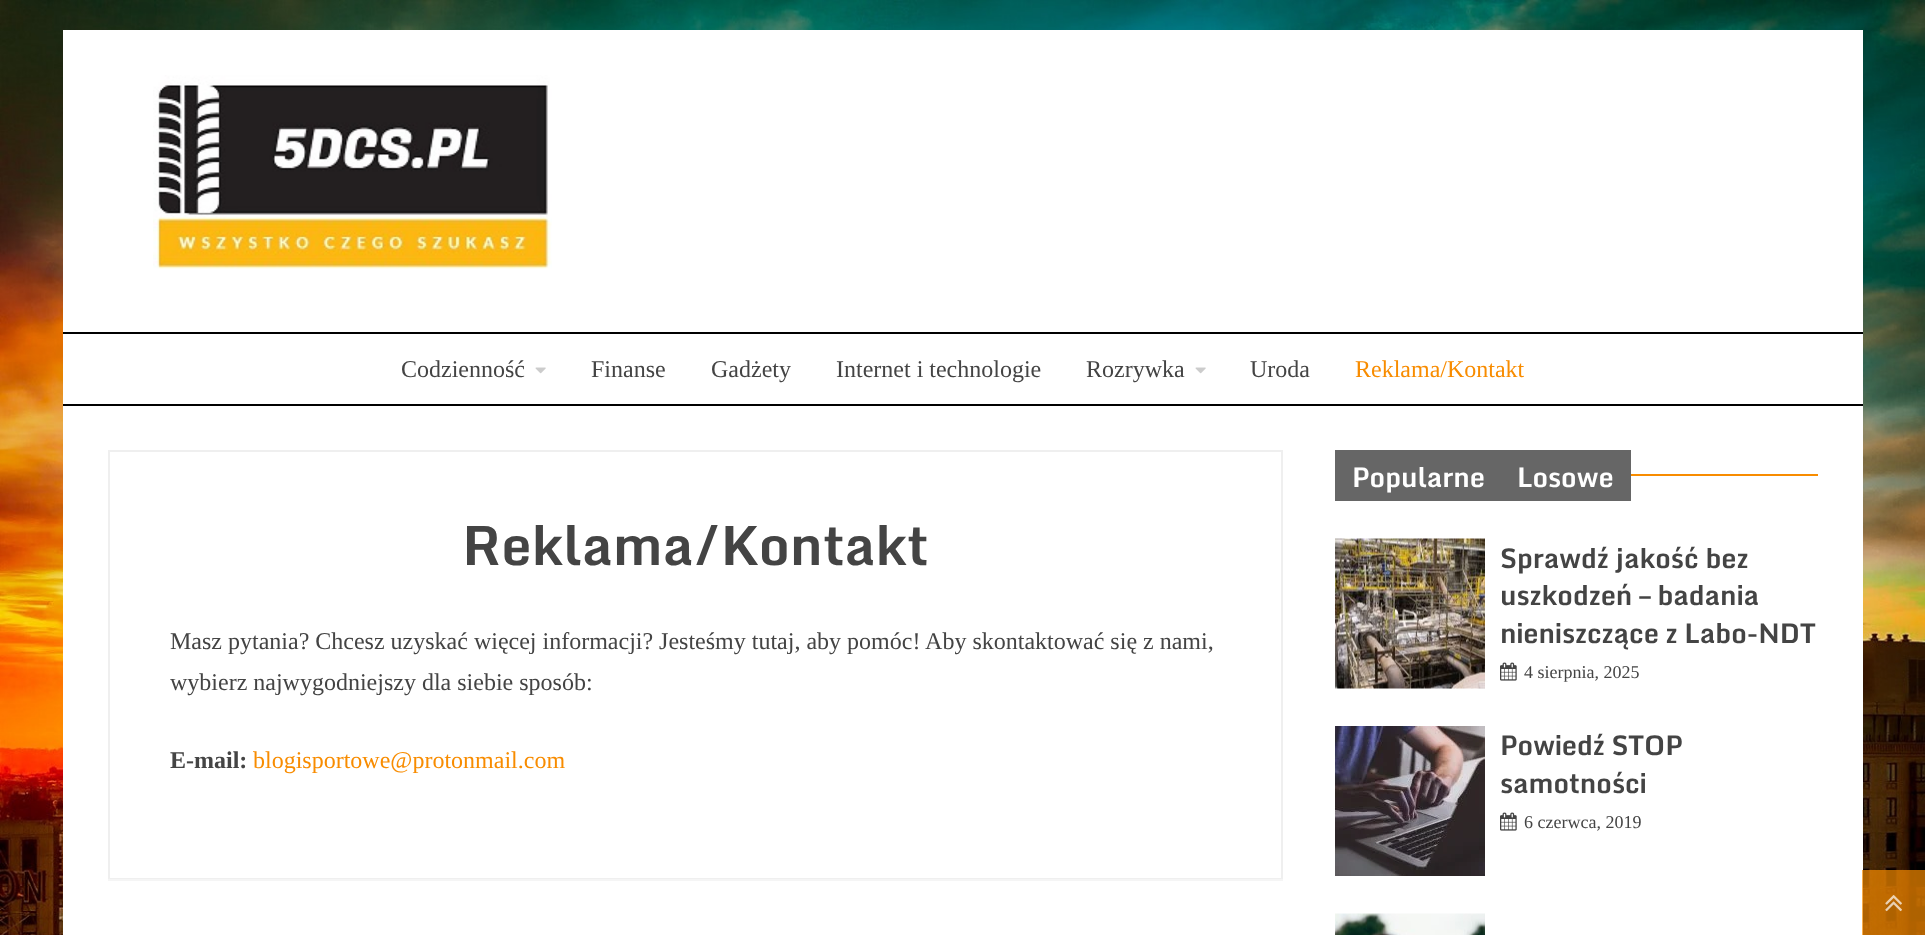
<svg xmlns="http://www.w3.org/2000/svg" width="1925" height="935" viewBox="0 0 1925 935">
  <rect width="100%" height="100%" fill="#fff"/>
  <image x="0" y="0" width="1925" height="935" href="img/1.png"/>
  <path d="M63 30h1800v905H63z" fill="#fff"/>
  <image x="153" y="75" width="399" height="194" href="img/2.png"/>
  <path d="M63 332h1800v2H63z" fill="#000"/>
  <path d="M63 404h1800v2H63z" fill="#000"/>
  <image x="535" y="367" width="11" height="7" href="img/3.png"/>
  <image x="1195" y="367" width="11" height="7" href="img/3.png"/>
  <path d="M108 879V881H1283V452H1282V879Z" fill="#f5f5f5"/>
  <path d="M109 451h1173v427H109z" fill="none" stroke="#efefef" stroke-width="2"/>
  <path d="M110 877h1171v1H110z" fill="#fff"/>
  <path d="M1335 450h296v51H1335z" fill="#666"/>
  <path d="M1631 474h187v2H1631z" fill="#f88c00"/>
  <image x="1335" y="538" width="150" height="151" href="img/4.png"/>
  <image x="1500" y="662" width="17" height="19" href="img/5.png"/>
  <image x="1335" y="726" width="150" height="150" href="img/6.png"/>
  <image x="1500" y="812" width="17" height="19" href="img/5.png"/>
  <image x="1335" y="913" width="150" height="22" href="img/7.png"/>
  <path d="M1862 870h63v65H1862z" fill="#f88c00b3"/>
  <image x="1885" y="895" width="17" height="17" href="img/8.png"/>
  <g font-family="Liberation Serif" font-size="24" fill="#444">
    <text x="401" y="377">Codzienność</text>
    <text x="591" y="377">Finanse</text>
    <text x="711" y="377">Gadżety</text>
    <text x="836" y="377">Internet i technologie</text>
    <text x="1086" y="377">Rozrywka</text>
    <text x="1250" y="377">Uroda</text>
  </g>
  <text x="1355" y="377" font-family="Liberation Serif" font-size="24" fill="#f88c00">Reklama/Kontakt</text>
  <text x="462" y="565" font-family="Monda" font-size="54" font-weight="bold" fill="#444">Reklama/Kontakt</text>
  <g font-family="Liberation Serif" font-size="24" fill="#444">
    <text x="170" y="649">Masz pytania? Chcesz uzyskać więcej informacji? Jesteśmy tutaj, aby pomóc! Aby skontaktować się z nami,</text>
    <text x="170" y="690">wybierz najwygodniejszy dla siebie sposób:</text>
  </g>
  <text x="170" y="768" font-family="Liberation Serif" font-size="24" font-weight="bold" fill="#444">E-mail:</text>
  <text x="253" y="768" font-family="Liberation Serif" font-size="24" fill="#f88c00">blogisportowe@protonmail.com</text>
  <g font-family="Monda" font-size="27" font-weight="bold" fill="#fff">
    <text x="1352" y="487">Popularne</text>
    <text x="1517" y="487">Losowe</text>
  </g>
  <g font-family="Monda" font-size="27" font-weight="bold" fill="#444">
    <text x="1500" y="568">Sprawdź jakość bez</text>
    <text x="1500" y="605">uszkodzeń – badania</text>
    <text x="1500" y="643">nieniszczące z Labo-NDT</text>
  </g>
  <text x="1524" y="678" font-family="Liberation Serif" font-size="18" fill="#444">4 sierpnia, 2025</text>
  <g font-family="Monda" font-size="27" font-weight="bold" fill="#444">
    <text x="1500" y="755">Powiedź STOP</text>
    <text x="1500" y="793">samotności</text>
  </g>
  <text x="1524" y="828" font-family="Liberation Serif" font-size="18" fill="#444">6 czerwca, 2019</text>
</svg>
